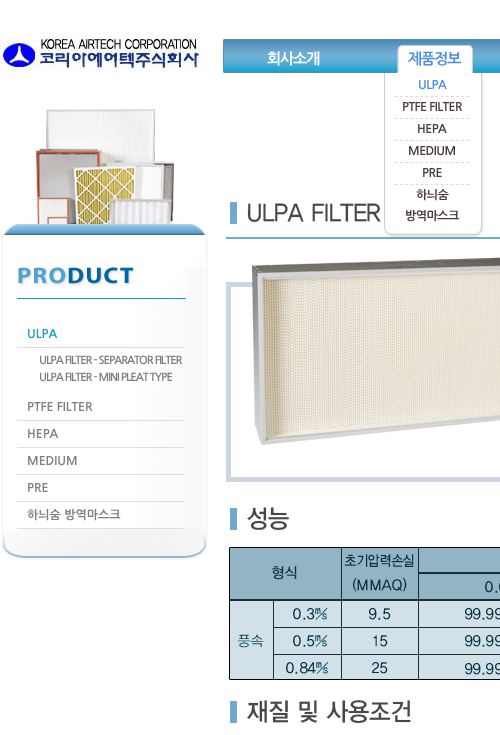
<svg xmlns="http://www.w3.org/2000/svg" width="500" height="735" viewBox="0 0 500 735">
  <rect width="100%" height="100%" fill="#fff"/>
  <image x="0" y="39" width="199" height="33" href="img/1.png"/>
  <image x="223" y="39" width="277" height="34" href="img/2.png"/>
  <image x="397" y="45" width="76" height="28" href="img/3.png"/>
  <image x="226" y="202" width="274" height="522" href="img/9.png"/>
  <image x="384" y="73" width="100" height="165" href="img/4.png"/>
  <path d="M395 96.5H469" fill="none" stroke="#dadada" stroke-dasharray="3 2.07"/>
  <path d="M395 118.5H469" fill="none" stroke="#dadada" stroke-dasharray="3 2.07"/>
  <path d="M395 140.5H469" fill="none" stroke="#dadada" stroke-dasharray="3 2.07"/>
  <path d="M395 162.5H469" fill="none" stroke="#dadada" stroke-dasharray="3 2.07"/>
  <path d="M395 184.5H469" fill="none" stroke="#dadada" stroke-dasharray="3 2.07"/>
  <image x="1" y="109" width="207" height="158" href="img/5.png"/>
  <image x="1" y="267" width="207" height="262" href="img/6.png"/>
  <image x="17" y="267" width="169" height="32" href="img/7.png"/>
  <path d="M17 347h168v1H17z" fill="#dedede"/>
  <path d="M17 420h168v1H17z" fill="#dedede"/>
  <path d="M17 447h168v1H17z" fill="#dedede"/>
  <path d="M17 474h168v1H17z" fill="#dedede"/>
  <path d="M17 501h168v1H17z" fill="#dedede"/>
  <path d="M17 528h168v1H17z" fill="#dedede"/>
  <image x="1" y="529" width="207" height="31" href="img/8.png"/>
  <text x="267" y="64" font-family="NanumGothic" font-size="15" font-weight="bold" letter-spacing="-1" fill="#fff">회사소개</text>
  <text x="408" y="64" font-family="NanumGothic" font-size="15" font-weight="bold" letter-spacing="-1" fill="#4d8de1">제품정보</text>
  <text x="418" y="89" font-family="NanumGothic" font-size="12" font-weight="bold" letter-spacing="-0.5" fill="#4d8de1">ULPA</text>
  <g font-family="NanumGothic" font-size="12" font-weight="bold" letter-spacing="-0.5" fill="#4c3939">
    <text x="402" y="111">PTFE FILTER</text>
    <text x="417" y="133">HEPA</text>
    <text x="408" y="155">MEDIUM</text>
    <text x="422" y="177">PRE</text>
    <text x="416" y="199">하늬숨</text>
    <text x="405" y="220">방역마스크</text>
  </g>
  <text x="27" y="338" font-family="NanumGothic" font-size="12" font-weight="bold" fill="#1d9ad4">ULPA</text>
  <g font-family="NanumGothic" font-size="11" font-weight="bold" letter-spacing="-1" fill="#7e7e7e">
    <text x="39" y="364">ULPA FILTER - SEPARATOR FILTER</text>
    <text x="39" y="381">ULPA FILTER - MINI PLEAT TYPE</text>
  </g>
  <g font-family="NanumGothic" font-size="12" font-weight="bold" fill="#7e7e7e">
    <text x="27" y="411">PTFE FILTER</text>
    <text x="27" y="438">HEPA</text>
    <text x="27" y="465">MEDIUM</text>
    <text x="27" y="492">PRE</text>
    <text x="27" y="519">하늬숨 방역마스크</text>
  </g>
</svg>
